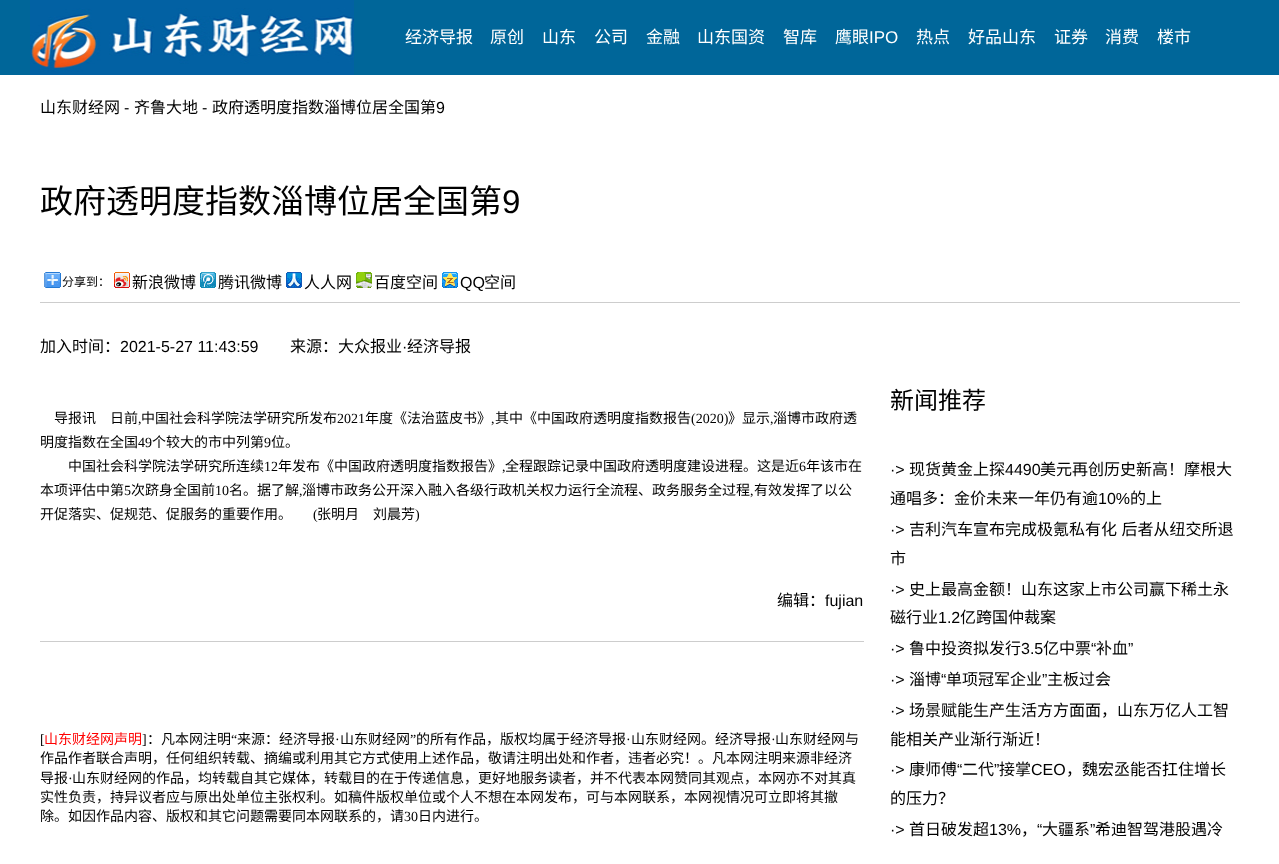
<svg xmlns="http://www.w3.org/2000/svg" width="1279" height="864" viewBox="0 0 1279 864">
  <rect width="100%" height="100%" fill="#fff"/>
  <path d="M0 0h1279v75H0z" fill="#069"/>
  <image x="30" y="0" width="324" height="75" href="img/1.png"/>
  <image x="44" y="272" width="17" height="16" href="img/2.png"/>
  <image x="114" y="272" width="16" height="16" href="img/3.png"/>
  <image x="200" y="272" width="16" height="16" href="img/4.png"/>
  <image x="286" y="272" width="16" height="16" href="img/5.png"/>
  <image x="356" y="272" width="16" height="16" href="img/6.png"/>
  <image x="442" y="272" width="16" height="16" href="img/7.png"/>
  <path d="M40 302h1200v1H40z" fill="#cdcdcd"/>
  <path d="M40 641h824v1H40z" fill="#cdcdcd"/>
  <g font-family="Noto Sans CJK SC" font-size="17" fill="#fff">
    <text x="405" y="43">经济导报</text>
    <text x="490" y="43">原创</text>
    <text x="542" y="43">山东</text>
    <text x="594" y="43">公司</text>
    <text x="646" y="43">金融</text>
    <text x="697" y="43">山东国资</text>
    <text x="783" y="43">智库</text>
    <text x="835" y="43">鹰眼</text>
  </g>
  <text x="869" y="43" font-family="Liberation Sans" font-size="17" fill="#fff">IPO</text>
  <g font-family="Noto Sans CJK SC" font-size="17" fill="#fff">
    <text x="916" y="43">热点</text>
    <text x="968" y="43">好品山东</text>
    <text x="1054" y="43">证券</text>
    <text x="1105" y="43">消费</text>
    <text x="1157" y="43">楼市</text>
  </g>
  <text x="40" y="113" font-family="Noto Sans CJK SC" font-size="16" fill="#000">山东财经网</text>
  <text x="124" y="113" font-family="Liberation Sans" font-size="16" fill="#000">-</text>
  <text x="134" y="113" font-family="Noto Sans CJK SC" font-size="16" fill="#000">齐鲁大地</text>
  <text x="202" y="113" font-family="Liberation Sans" font-size="16" fill="#000">-</text>
  <text x="212" y="113" font-family="Noto Sans CJK SC" font-size="16" fill="#000">政府透明度指数淄博位居全国第</text>
  <text x="436" y="113" font-family="Liberation Sans" font-size="16" fill="#000">9</text>
  <text x="40" y="213" font-family="Noto Sans CJK SC" font-size="33" fill="#000">政府透明度指数淄博位居全国第</text>
  <text x="502" y="213" font-family="Liberation Sans" font-size="33" fill="#000">9</text>
  <text x="62" y="286" font-family="Noto Sans CJK SC" font-size="12" fill="#000">分享到：</text>
  <g font-family="Noto Sans CJK SC" font-size="16" fill="#000">
    <text x="132" y="288">新浪微博</text>
    <text x="218" y="288">腾讯微博</text>
    <text x="304" y="288">人人网</text>
    <text x="374" y="288">百度空间</text>
  </g>
  <text x="460" y="288" font-family="Liberation Sans" font-size="16" fill="#000">QQ</text>
  <g font-family="Noto Sans CJK SC" font-size="16" fill="#000">
    <text x="484" y="288">空间</text>
    <text x="40" y="352">加入时间：</text>
  </g>
  <text x="120" y="352" font-family="Liberation Sans" font-size="16" fill="#000">2021-5-27 11:43:59</text>
  <text x="290" y="352" font-family="Noto Sans CJK SC" font-size="16" fill="#000">来源：大众报业</text>
  <text x="402" y="352" font-family="Liberation Sans" font-size="16" fill="#000">·</text>
  <text x="407" y="352" font-family="Noto Sans CJK SC" font-size="16" fill="#000">经济导报</text>
  <text x="54" y="423" font-family="Noto Sans CJK SC" font-size="14" fill="#000">导报讯　日前</text>
  <text x="138" y="423" font-family="Liberation Serif" font-size="14" fill="#000">,</text>
  <text x="141" y="423" font-family="Noto Sans CJK SC" font-size="14" fill="#000">中国社会科学院法学研究所发布</text>
  <text x="337" y="423" font-family="Liberation Serif" font-size="14" fill="#000">2021</text>
  <text x="365" y="423" font-family="Noto Sans CJK SC" font-size="14" fill="#000">年度《法治蓝皮书》</text>
  <text x="491" y="423" font-family="Liberation Serif" font-size="14" fill="#000">,</text>
  <text x="495" y="423" font-family="Noto Sans CJK SC" font-size="14" fill="#000">其中《中国政府透明度指数报告</text>
  <text x="691" y="423" font-family="Liberation Serif" font-size="14" fill="#000">(2020)</text>
  <text x="728" y="423" font-family="Noto Sans CJK SC" font-size="14" fill="#000">》显示</text>
  <text x="770" y="423" font-family="Liberation Serif" font-size="14" fill="#000">,</text>
  <g font-family="Noto Sans CJK SC" font-size="14" fill="#000">
    <text x="773" y="423">淄博市政府透</text>
    <text x="40" y="447">明度指数在全国</text>
  </g>
  <text x="138" y="447" font-family="Liberation Serif" font-size="14" fill="#000">49</text>
  <text x="152" y="447" font-family="Noto Sans CJK SC" font-size="14" fill="#000">个较大的市中列第</text>
  <text x="264" y="447" font-family="Liberation Serif" font-size="14" fill="#000">9</text>
  <g font-family="Noto Sans CJK SC" font-size="14" fill="#000">
    <text x="271" y="447">位。</text>
    <text x="68" y="471">中国社会科学院法学研究所连续</text>
  </g>
  <text x="264" y="471" font-family="Liberation Serif" font-size="14" fill="#000">12</text>
  <text x="278" y="471" font-family="Noto Sans CJK SC" font-size="14" fill="#000">年发布《中国政府透明度指数报告》</text>
  <text x="502" y="471" font-family="Liberation Serif" font-size="14" fill="#000">,</text>
  <text x="505" y="471" font-family="Noto Sans CJK SC" font-size="14" fill="#000">全程跟踪记录中国政府透明度建设进程。这是近</text>
  <text x="799" y="471" font-family="Liberation Serif" font-size="14" fill="#000">6</text>
  <g font-family="Noto Sans CJK SC" font-size="14" fill="#000">
    <text x="806" y="471">年该市在</text>
    <text x="40" y="495">本项评估中第</text>
  </g>
  <text x="124" y="495" font-family="Liberation Serif" font-size="14" fill="#000">5</text>
  <text x="131" y="495" font-family="Noto Sans CJK SC" font-size="14" fill="#000">次跻身全国前</text>
  <text x="215" y="495" font-family="Liberation Serif" font-size="14" fill="#000">10</text>
  <text x="229" y="495" font-family="Noto Sans CJK SC" font-size="14" fill="#000">名。据了解</text>
  <text x="299" y="495" font-family="Liberation Serif" font-size="14" fill="#000">,</text>
  <text x="302" y="495" font-family="Noto Sans CJK SC" font-size="14" fill="#000">淄博市政务公开深入融入各级行政机关权力运行全流程、政务服务全过程</text>
  <text x="750" y="495" font-family="Liberation Serif" font-size="14" fill="#000">,</text>
  <g font-family="Noto Sans CJK SC" font-size="14" fill="#000">
    <text x="754" y="495">有效发挥了以公</text>
    <text x="40" y="519">开促落实、促规范、促服务的重要作用。</text>
  </g>
  <text x="313" y="519" font-family="Liberation Serif" font-size="14" fill="#000">(</text>
  <text x="317" y="519" font-family="Noto Sans CJK SC" font-size="14" fill="#000">张明月　刘晨芳</text>
  <text x="415" y="519" font-family="Liberation Serif" font-size="14" fill="#000">)</text>
  <text x="777" y="606" font-family="Noto Sans CJK SC" font-size="16" fill="#000">编辑：</text>
  <text x="825" y="606" font-family="Liberation Sans" font-size="16" fill="#000">fujian</text>
  <text x="40" y="744" font-family="Liberation Serif" font-size="14" fill="#000">[</text>
  <text x="44" y="744" font-family="Noto Sans CJK SC" font-size="14" fill="#f00">山东财经网声明</text>
  <text x="142" y="744" font-family="Liberation Serif" font-size="14" fill="#000">]</text>
  <text x="147" y="744" font-family="Noto Sans CJK SC" font-size="14" fill="#000">：凡本网注明</text>
  <text x="231" y="744" font-family="Liberation Serif" font-size="14" fill="#000">“</text>
  <g font-family="Noto Sans CJK SC" font-size="14" fill="#000">
    <text x="237" y="744">来源：经济导报</text>
    <text x="340" y="744">山东财经网</text>
  </g>
  <text x="410" y="744" font-family="Liberation Serif" font-size="14" fill="#000">”</text>
  <g font-family="Noto Sans CJK SC" font-size="14" fill="#000">
    <text x="416" y="744">的所有作品，版权均属于经济导报</text>
    <text x="631" y="744">山东财经网。经济导报</text>
    <text x="775" y="744">山东财经网与</text>
  </g>
  <g font-family="Liberation Serif" font-size="14" fill="#000">
    <text x="335" y="744">·</text>
    <text x="626" y="744">·</text>
    <text x="771" y="744">·</text>
  </g>
  <g font-family="Noto Sans CJK SC" font-size="14" fill="#000">
    <text x="40" y="763">作品作者联合声明，任何组织转载、摘编或利用其它方式使用上述作品，敬请注明出处和作者，违者必究！。凡本网注明来源非经济</text>
    <text x="40" y="783">导报</text>
  </g>
  <text x="68" y="783" font-family="Liberation Serif" font-size="14" fill="#000">·</text>
  <g font-family="Noto Sans CJK SC" font-size="14" fill="#000">
    <text x="72" y="783">山东财经网的作品，均转载自其它媒体，转载目的在于传递信息，更好地服务读者，并不代表本网赞同其观点，本网亦不对其真</text>
    <text x="40" y="802">实性负责，持异议者应与原出处单位主张权利。如稿件版权单位或个人不想在本网发布，可与本网联系，本网视情况可立即将其撤</text>
    <text x="40" y="821">除。如因作品内容、版权和其它问题需要同本网联系的，请</text>
  </g>
  <text x="404" y="821" font-family="Liberation Serif" font-size="14" fill="#000">30</text>
  <text x="418" y="821" font-family="Noto Sans CJK SC" font-size="14" fill="#000">日内进行。</text>
  <text x="890" y="409" font-family="Noto Sans CJK SC" font-size="24" fill="#000">新闻推荐</text>
  <text x="890" y="475" font-family="Liberation Sans" font-size="16" fill="#000">·&gt;</text>
  <text x="909" y="475" font-family="Noto Sans CJK SC" font-size="16" fill="#000">现货黄金上探</text>
  <text x="1005" y="475" font-family="Liberation Sans" font-size="16" fill="#000">4490</text>
  <g font-family="Noto Sans CJK SC" font-size="16" fill="#000">
    <text x="1040" y="475">美元再创历史新高！摩根大</text>
    <text x="890" y="504">通唱多：金价未来一年仍有逾</text>
  </g>
  <text x="1098" y="504" font-family="Liberation Sans" font-size="16" fill="#000">10%</text>
  <text x="1130" y="504" font-family="Noto Sans CJK SC" font-size="16" fill="#000">的上</text>
  <text x="890" y="535" font-family="Liberation Sans" font-size="16" fill="#000">·&gt;</text>
  <g font-family="Noto Sans CJK SC" font-size="16" fill="#000">
    <text x="909" y="535" word-spacing="1">吉利汽车宣布完成极氪私有化 后者从纽交所退</text>
    <text x="890" y="564">市</text>
  </g>
  <text x="890" y="595" font-family="Liberation Sans" font-size="16" fill="#000">·&gt;</text>
  <g font-family="Noto Sans CJK SC" font-size="16" fill="#000">
    <text x="909" y="595">史上最高金额！山东这家上市公司赢下稀土永</text>
    <text x="890" y="623">磁行业</text>
  </g>
  <text x="938" y="623" font-family="Liberation Sans" font-size="16" fill="#000">1.2</text>
  <text x="960" y="623" font-family="Noto Sans CJK SC" font-size="16" fill="#000">亿跨国仲裁案</text>
  <text x="890" y="654" font-family="Liberation Sans" font-size="16" fill="#000">·&gt;</text>
  <text x="909" y="654" font-family="Noto Sans CJK SC" font-size="16" fill="#000">鲁中投资拟发行</text>
  <text x="1021" y="654" font-family="Liberation Sans" font-size="16" fill="#000">3.5</text>
  <text x="1043" y="654" font-family="Noto Sans CJK SC" font-size="16" fill="#000">亿中票</text>
  <text x="1091" y="654" font-family="Liberation Sans" font-size="16" fill="#000">“</text>
  <text x="1096" y="654" font-family="Noto Sans CJK SC" font-size="16" fill="#000">补血</text>
  <g font-family="Liberation Sans" font-size="16" fill="#000">
    <text x="1128" y="654">”</text>
    <text x="890" y="685">·&gt;</text>
  </g>
  <text x="909" y="685" font-family="Noto Sans CJK SC" font-size="16" fill="#000">淄博</text>
  <text x="941" y="685" font-family="Liberation Sans" font-size="16" fill="#000">“</text>
  <text x="946" y="685" font-family="Noto Sans CJK SC" font-size="16" fill="#000">单项冠军企业</text>
  <text x="1042" y="685" font-family="Liberation Sans" font-size="16" fill="#000">”</text>
  <text x="1047" y="685" font-family="Noto Sans CJK SC" font-size="16" fill="#000">主板过会</text>
  <text x="890" y="716" font-family="Liberation Sans" font-size="16" fill="#000">·&gt;</text>
  <g font-family="Noto Sans CJK SC" font-size="16" fill="#000">
    <text x="909" y="716">场景赋能生产生活方方面面，山东万亿人工智</text>
    <text x="890" y="745">能相关产业渐行渐近！</text>
  </g>
  <text x="890" y="775" font-family="Liberation Sans" font-size="16" fill="#000">·&gt;</text>
  <text x="909" y="775" font-family="Noto Sans CJK SC" font-size="16" fill="#000">康师傅</text>
  <text x="957" y="775" font-family="Liberation Sans" font-size="16" fill="#000">“</text>
  <text x="962" y="775" font-family="Noto Sans CJK SC" font-size="16" fill="#000">二代</text>
  <text x="994" y="775" font-family="Liberation Sans" font-size="16" fill="#000">”</text>
  <text x="999" y="775" font-family="Noto Sans CJK SC" font-size="16" fill="#000">接掌</text>
  <text x="1031" y="775" font-family="Liberation Sans" font-size="16" fill="#000">CEO</text>
  <g font-family="Noto Sans CJK SC" font-size="16" fill="#000">
    <text x="1066" y="775">，魏宏丞能否扛住增长</text>
    <text x="890" y="804">的压力？</text>
  </g>
  <text x="890" y="835" font-family="Liberation Sans" font-size="16" fill="#000">·&gt;</text>
  <text x="909" y="835" font-family="Noto Sans CJK SC" font-size="16" fill="#000">首日破发超</text>
  <text x="989" y="835" font-family="Liberation Sans" font-size="16" fill="#000">13%</text>
  <text x="1021" y="835" font-family="Noto Sans CJK SC" font-size="16" fill="#000">，</text>
  <text x="1037" y="835" font-family="Liberation Sans" font-size="16" fill="#000">“</text>
  <text x="1042" y="835" font-family="Noto Sans CJK SC" font-size="16" fill="#000">大疆系</text>
  <text x="1090" y="835" font-family="Liberation Sans" font-size="16" fill="#000">”</text>
  <text x="1095" y="835" font-family="Noto Sans CJK SC" font-size="16" fill="#000">希迪智驾港股遇冷</text>
</svg>
